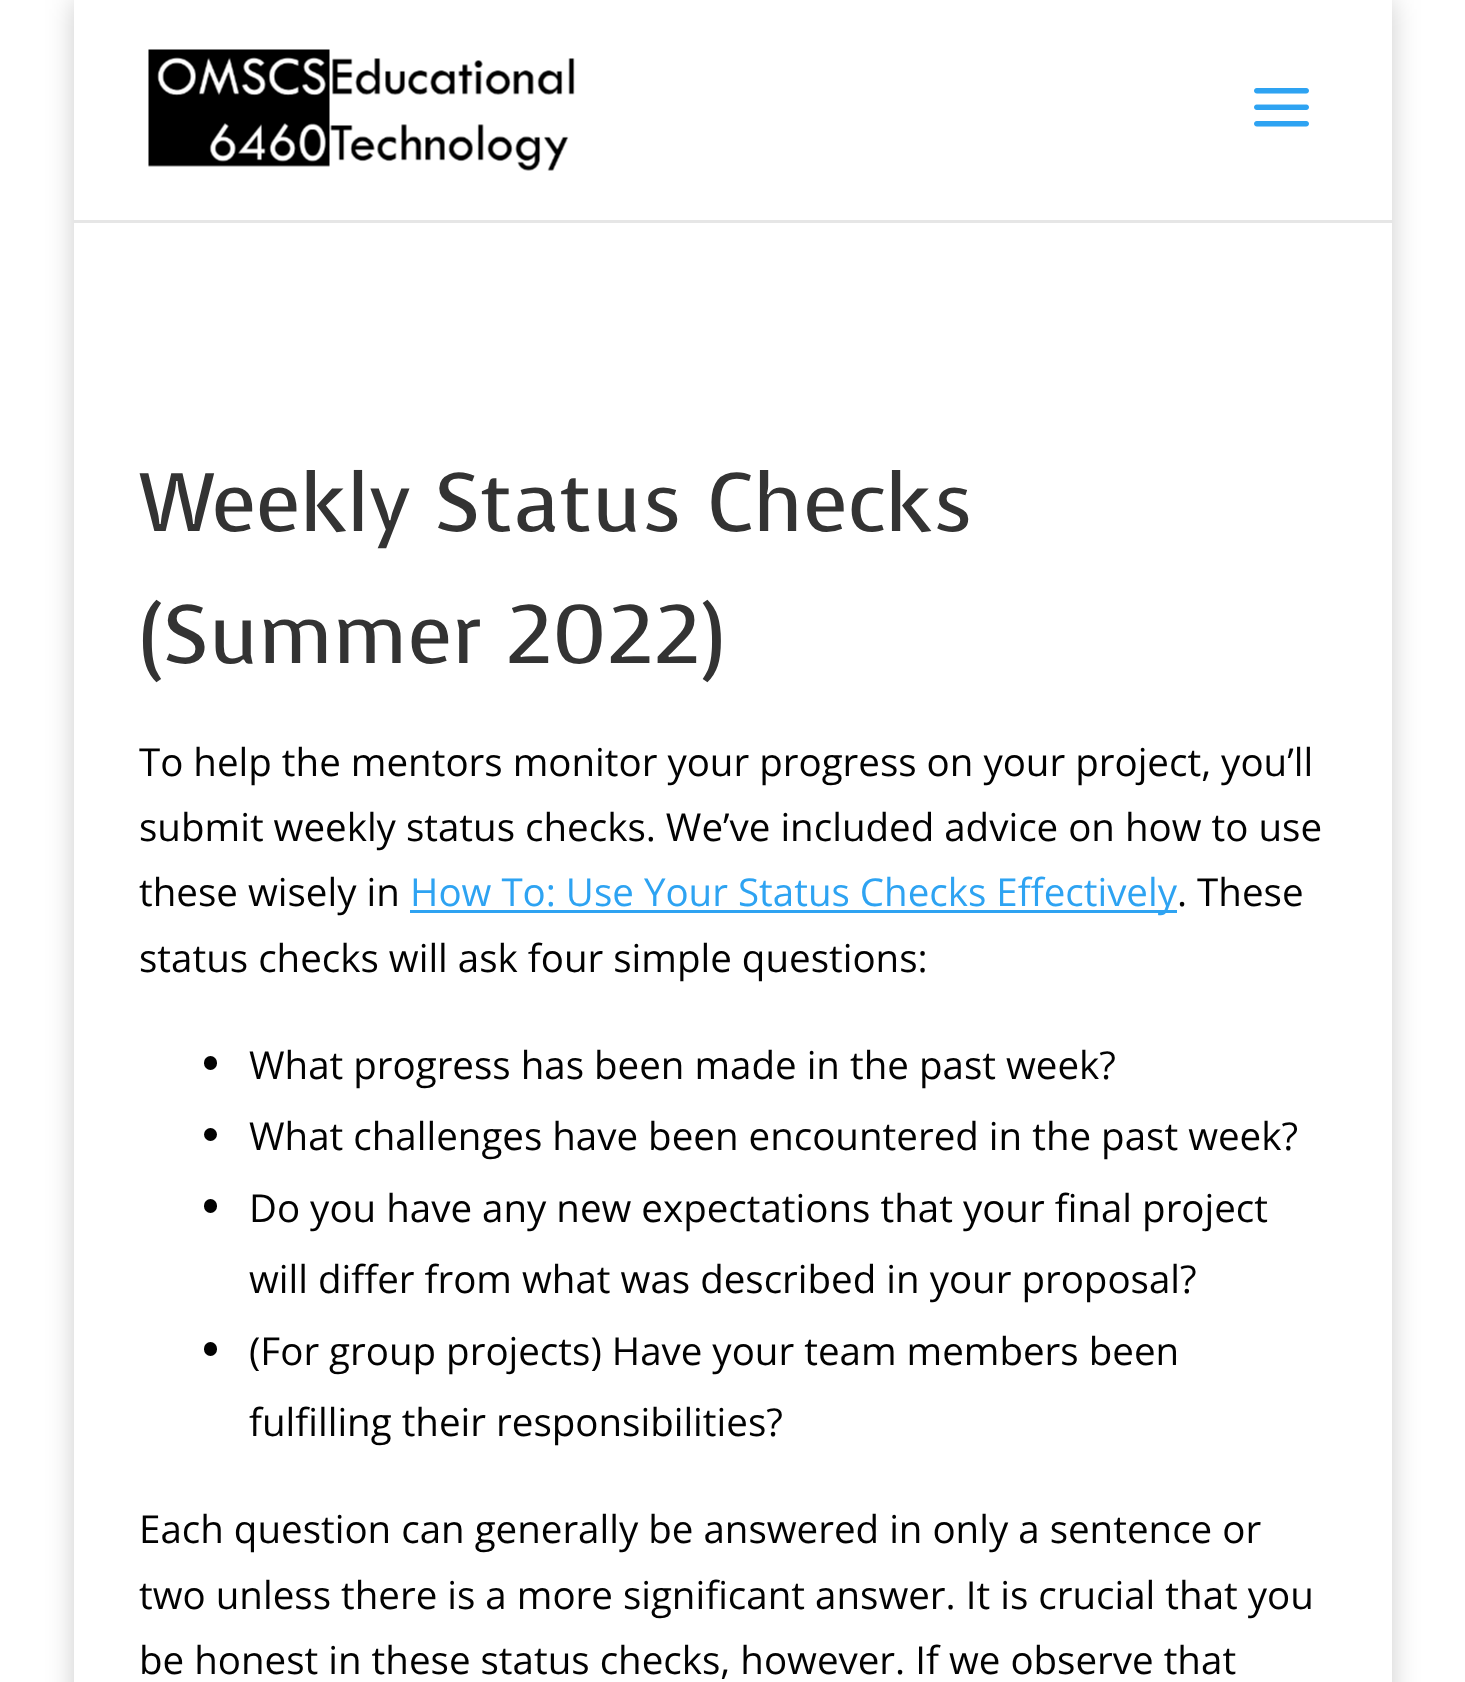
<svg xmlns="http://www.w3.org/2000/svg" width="1465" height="1682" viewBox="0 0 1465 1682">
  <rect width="100%" height="100%" fill="#fff"/>
  <path d="M74 0h1318v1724H74z" fill="#00000033" filter="blur(14px)"/>
  <path d="M74 3V223H1392V3V220H74Z" fill="#e6e6e6"/>
  <path d="M74 0h1318v220H74z" fill="#fff"/>
  <image x="148" y="49" width="427" height="122" href="img/1.png"/>
  <image x="1254" y="88" width="55" height="39" href="img/2.png"/>
  <path d="M74 223h1318v1459H74z" fill="#fff"/>
  <path d="M410 910h767v3H410z" fill="#2ea3f2"/>
  <rect x="204" y="1056" width="13" height="14" rx="6.5" fill="#020202"/>
  <circle cx="210.5" cy="1134.5" r="6.5" fill="#020202"/>
  <rect x="204" y="1199" width="13" height="14" rx="6.5" fill="#020202"/>
  <rect x="204" y="1342" width="13" height="14" rx="6.5" fill="#020202"/>
  <g font-family="Voces" font-size="82.5" fill="#333">
    <text x="139" y="531">Weekly Status Checks</text>
    <text x="139" y="663">(Summer 2022)</text>
  </g>
  <g font-family="Open Sans" font-size="38.5" fill="#020202">
    <text x="139" y="776">To help the mentors monitor your progress on your project, you’ll</text>
    <text x="139" y="841">submit weekly status checks. We’ve included advice on how to use</text>
    <text x="139" y="906">these wisely in</text>
  </g>
  <text x="410" y="906" font-family="Open Sans" font-size="38.5" fill="#2ea3f2">How To: Use Your Status Checks Effectively</text>
  <g font-family="Open Sans" font-size="38.5" fill="#020202">
    <text x="1177" y="906">. These</text>
    <text x="139" y="972">status checks will ask four simple questions:</text>
    <text x="249" y="1079">What progress has been made in the past week?</text>
    <text x="249" y="1150">What challenges have been encountered in the past week?</text>
    <text x="249" y="1222">Do you have any new expectations that your final project</text>
    <text x="249" y="1293">will differ from what was described in your proposal?</text>
    <text x="249" y="1365">(For group projects) Have your team members been</text>
    <text x="249" y="1436">fulfilling their responsibilities?</text>
    <text x="139" y="1543">Each question can generally be answered in only a sentence or</text>
    <text x="139" y="1609">two unless there is a more significant answer. It is crucial that you</text>
    <text x="139" y="1674">be honest in these status checks, however. If we observe that</text>
  </g>
</svg>
